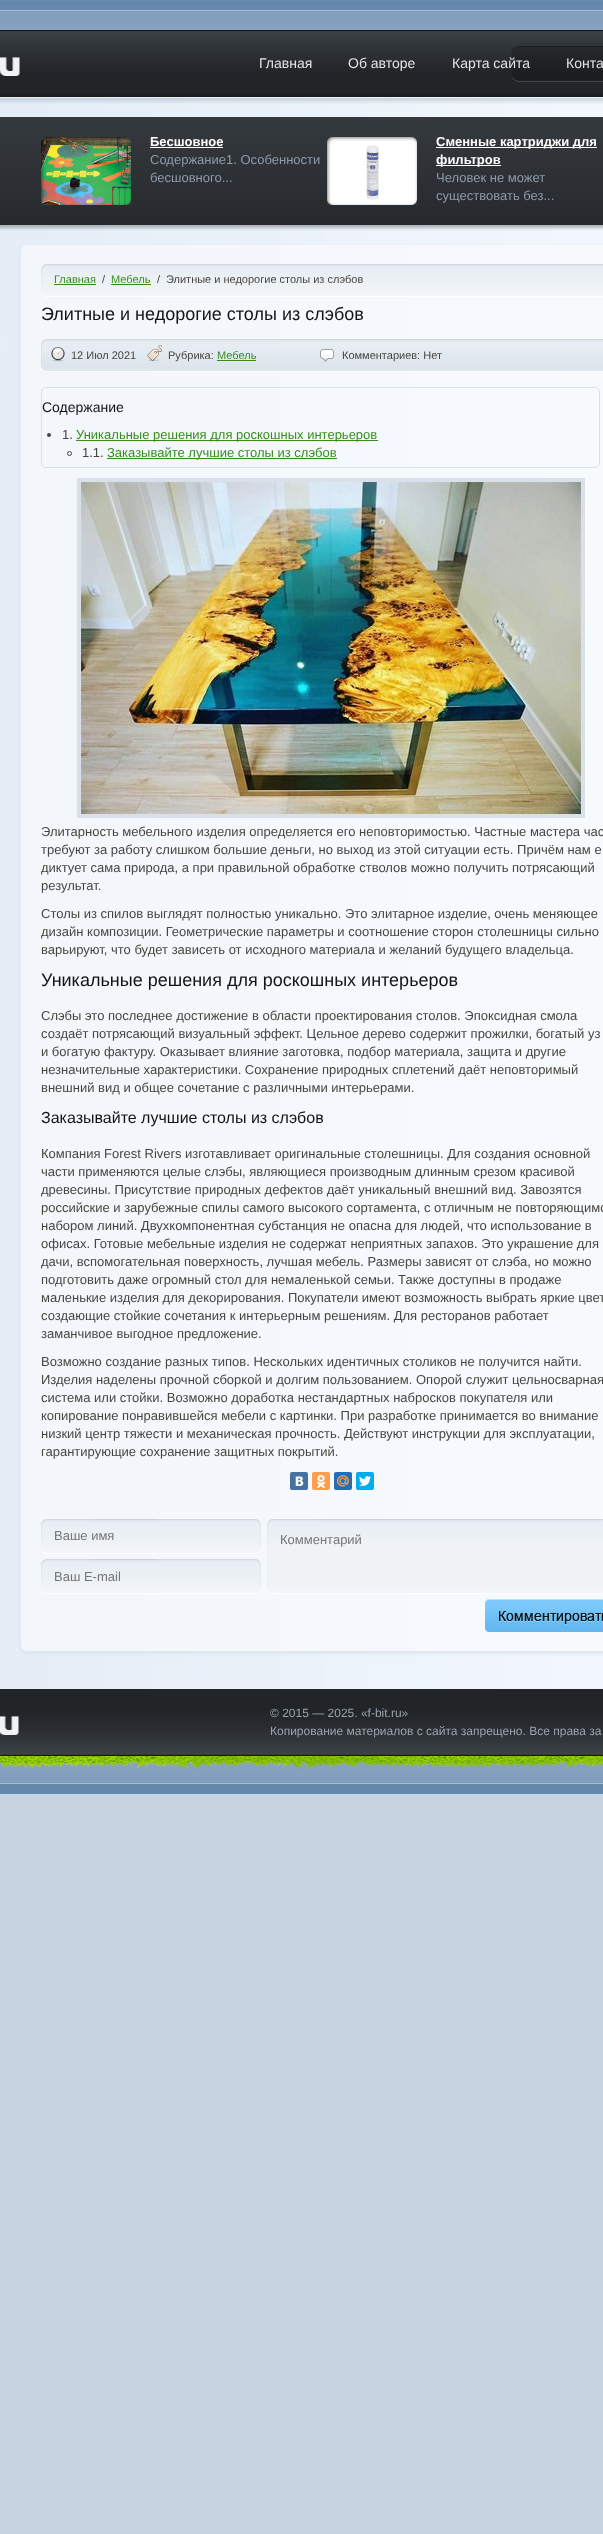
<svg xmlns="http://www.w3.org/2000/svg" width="603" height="2534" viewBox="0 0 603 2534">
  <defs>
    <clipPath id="clip1"><path d="M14 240H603V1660H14ZM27 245H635C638.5 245 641 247.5 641 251V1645C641 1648.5 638.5 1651 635 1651H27C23.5 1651 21 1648.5 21 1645V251C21 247.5 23.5 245 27 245Z" clip-rule="evenodd"/></clipPath>
  </defs>
  <rect width="100%" height="100%" fill="#c6d3e1"/>
  <image x="0" y="346" width="603" height="1343" href="img/1.png"/>
  <image x="0" y="0" width="603" height="346" href="img/2.png"/>
  <image x="41" y="137" width="90" height="68" href="img/3.png"/>
  <image x="41" y="137" width="90" height="68" href="img/4.png"/>
  <path d="M150 147h73v1H150z" fill="#fefefe"/>
  <image x="327" y="137" width="90" height="68" href="img/5.png"/>
  <image x="327" y="137" width="90" height="68" href="img/6.png"/>
  <path d="M436 147h161v1H436z" fill="#fefefe"/>
  <path d="M436 165h65v1H436z" fill="#fefefe"/>
  <g clip-path="url(#clip1)">
    <rect x="21" y="247" width="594" height="1406" rx="6" fill="#d9e2ec" filter="blur(2px)"/>
  </g>
  <image x="21" y="245" width="582" height="1406" href="img/7.png"/>
  <image x="41" y="264" width="562" height="33" href="img/8.png"/>
  <path d="M54 284h42v1H54z" fill="#368d1c"/>
  <path d="M111 284h40v1H111z" fill="#368d1c"/>
  <image x="41" y="339" width="562" height="33" href="img/9.png"/>
  <path d="M217 360h39v1H217z" fill="#368d1c"/>
  <image x="320" y="349" width="14" height="13" href="img/10.png"/>
  <rect x="41.5" y="387.5" width="558" height="80" rx="4.5" fill="none" stroke="#d9e0e9"/>
  <circle cx="49" cy="435" r="2" fill="#474540"/>
  <path d="M76 440h302v1H76z" fill="#368d1c"/>
  <circle cx="69.5" cy="453.5" r="2" fill="none" stroke="#474540"/>
  <path d="M107 458h230v1H107z" fill="#368d1c"/>
  <path d="M79 480h504v336H79z" fill="none" stroke="#d9e0e9" stroke-width="4"/>
  <image x="81" y="482" width="500" height="332" href="img/11.png"/>
  <rect x="290" y="1472" width="18" height="18" rx="2" fill="#48729e"/>
  <image x="295" y="1476" width="9" height="10" href="img/12.png"/>
  <rect x="312" y="1472" width="18" height="18" rx="2" fill="#ff9f4d"/>
  <image x="317" y="1475" width="8" height="13" href="img/13.png"/>
  <rect x="334" y="1472" width="18" height="18" rx="2" fill="#226eb7"/>
  <image x="337" y="1475" width="12" height="12" href="img/14.png"/>
  <rect x="356" y="1472" width="18" height="18" rx="2" fill="#00aced"/>
  <image x="359" y="1476" width="12" height="10" href="img/15.png"/>
  <image x="41" y="1519" width="562" height="113" href="img/16.png"/>
  <image x="0" y="1689" width="603" height="105" href="img/17.png"/>
  <g font-family="Liberation Sans" font-size="14" fill="#e3e3e3">
    <text x="259" y="68">Главная</text>
    <text x="348" y="68">Об авторе</text>
    <text x="452" y="68">Карта сайта</text>
    <text x="566" y="68">Конта</text>
  </g>
  <text x="150" y="146" font-family="Liberation Sans" font-size="13" font-weight="bold" fill="#fefefe">Бесшовное</text>
  <g font-family="Liberation Sans" font-size="13" fill="#8e9ba7">
    <text x="150" y="164">Содержание1. Особенности</text>
    <text x="150" y="182">бесшовного...</text>
  </g>
  <g font-family="Liberation Sans" font-size="13" font-weight="bold" fill="#fefefe">
    <text x="436" y="146">Сменные картриджи для</text>
    <text x="436" y="164">фильтров</text>
  </g>
  <g font-family="Liberation Sans" font-size="13" fill="#8e9ba7">
    <text x="436" y="182">Человек не может</text>
    <text x="436" y="200">существовать без...</text>
  </g>
  <text x="54" y="283" font-family="Liberation Sans" font-size="11" fill="#368d1c">Главная</text>
  <text x="102" y="283" font-family="Liberation Sans" font-size="11" fill="#474540">/</text>
  <text x="111" y="283" font-family="Liberation Sans" font-size="11" fill="#368d1c">Мебель</text>
  <g font-family="Liberation Sans" font-size="11" fill="#474540">
    <text x="157" y="283">/</text>
    <text x="166" y="283">Элитные и недорогие столы из слэбов</text>
  </g>
  <text x="41" y="320" font-family="Liberation Sans" font-size="18" fill="#141414">Элитные и недорогие столы из слэбов</text>
  <g font-family="Liberation Sans" font-size="11" fill="#474540">
    <text x="71" y="359">12 Июл 2021</text>
    <text x="168" y="359">Рубрика:</text>
  </g>
  <text x="217" y="359" font-family="Liberation Sans" font-size="11" fill="#368d1c">Мебель</text>
  <text x="342" y="359" font-family="Liberation Sans" font-size="11" fill="#474540">Комментариев: Нет</text>
  <text x="42" y="412" font-family="Liberation Sans" font-size="14" fill="#141414">Содержание</text>
  <text x="62" y="439" font-family="Liberation Sans" font-size="13" fill="#474540">1.</text>
  <text x="76" y="439" font-family="Liberation Sans" font-size="13" fill="#368d1c">Уникальные решения для роскошных интерьеров</text>
  <text x="82" y="457" font-family="Liberation Sans" font-size="13" fill="#474540">1.1.</text>
  <text x="107" y="457" font-family="Liberation Sans" font-size="13" fill="#368d1c">Заказывайте лучшие столы из слэбов</text>
  <g font-family="Liberation Sans" font-size="13" fill="#474540">
    <text x="41" y="836">Элитарность мебельного изделия определяется его неповторимостью. Частные мастера час</text>
    <text x="41" y="854">требуют за работу слишком большие деньги, но выход из этой ситуации есть. Причём нам е</text>
    <text x="41" y="872">диктует сама природа, а при правильной обработке стволов можно получить потрясающий</text>
    <text x="41" y="890">результат.</text>
    <text x="41" y="918">Столы из спилов выглядят полностью уникально. Это элитарное изделие, очень меняющее</text>
    <text x="41" y="936">дизайн композиции. Геометрические параметры и соотношение сторон столешницы сильно</text>
    <text x="41" y="954">варьируют, что будет зависеть от исходного материала и желаний будущего владельца.</text>
  </g>
  <text x="41" y="986" font-family="Liberation Sans" font-size="18" fill="#141414">Уникальные решения для роскошных интерьеров</text>
  <g font-family="Liberation Sans" font-size="13" fill="#474540">
    <text x="41" y="1020">Слэбы это последнее достижение в области проектирования столов. Эпоксидная смола</text>
    <text x="41" y="1038">создаёт потрясающий визуальный эффект. Цельное дерево содержит прожилки, богатый уз</text>
    <text x="41" y="1056">и богатую фактуру. Оказывает влияние заготовка, подбор материала, защита и другие</text>
    <text x="41" y="1074">незначительные характеристики. Сохранение природных сплетений даёт неповторимый</text>
    <text x="41" y="1092">внешний вид и общее сочетание с различными интерьерами.</text>
  </g>
  <text x="41" y="1123" font-family="Liberation Sans" font-size="16" fill="#141414">Заказывайте лучшие столы из слэбов</text>
  <g font-family="Liberation Sans" font-size="13" fill="#474540">
    <text x="41" y="1158">Компания Forest Rivers изготавливает оригинальные столешницы. Для создания основной</text>
    <text x="41" y="1176">части применяются целые слэбы, являющиеся производным длинным срезом красивой</text>
    <text x="41" y="1194">древесины. Присутствие природных дефектов даёт уникальный внешний вид. Завозятся</text>
    <text x="41" y="1212">российские и зарубежные спилы самого высокого сортамента, с отличным не повторяющимс</text>
    <text x="41" y="1230">набором линий. Двухкомпонентная субстанция не опасна для людей, что использование в</text>
    <text x="41" y="1248">офисах. Готовые мебельные изделия не содержат неприятных запахов. Это украшение для</text>
    <text x="41" y="1266">дачи, вспомогательная поверхность, лучшая мебель. Размеры зависят от слэба, но можно</text>
    <text x="41" y="1284">подготовить даже огромный стол для немаленькой семьи. Также доступны в продаже</text>
    <text x="41" y="1302">маленькие изделия для декорирования. Покупатели имеют возможность выбрать яркие цвет</text>
    <text x="41" y="1320">создающие стойкие сочетания к интерьерным решениям. Для ресторанов работает</text>
    <text x="41" y="1338">заманчивое выгодное предложение.</text>
    <text x="41" y="1366">Возможно создание разных типов. Нескольких идентичных столиков не получится найти.</text>
    <text x="41" y="1384">Изделия наделены прочной сборкой и долгим пользованием. Опорой служит цельносварная</text>
    <text x="41" y="1402">система или стойки. Возможно доработка нестандартных набросков покупателя или</text>
    <text x="41" y="1420">копирование понравившейся мебели с картинки. При разработке принимается во внимание</text>
    <text x="41" y="1438">низкий центр тяжести и механическая прочность. Действуют инструкции для эксплуатации,</text>
    <text x="41" y="1456">гарантирующие сохранение защитных покрытий.</text>
  </g>
  <g font-family="Liberation Sans" font-size="13" fill="#757575">
    <text x="54" y="1540">Ваше имя</text>
    <text x="280" y="1544">Комментарий</text>
    <text x="54" y="1581">Ваш E-mail</text>
  </g>
  <g font-family="Liberation Sans" font-size="12" fill="#9aa3ad">
    <text x="270" y="1717">© 2015 — 2025. «f-bit.ru»</text>
    <text x="270" y="1735">Копирование материалов с сайта запрещено. Все права за</text>
  </g>
</svg>
